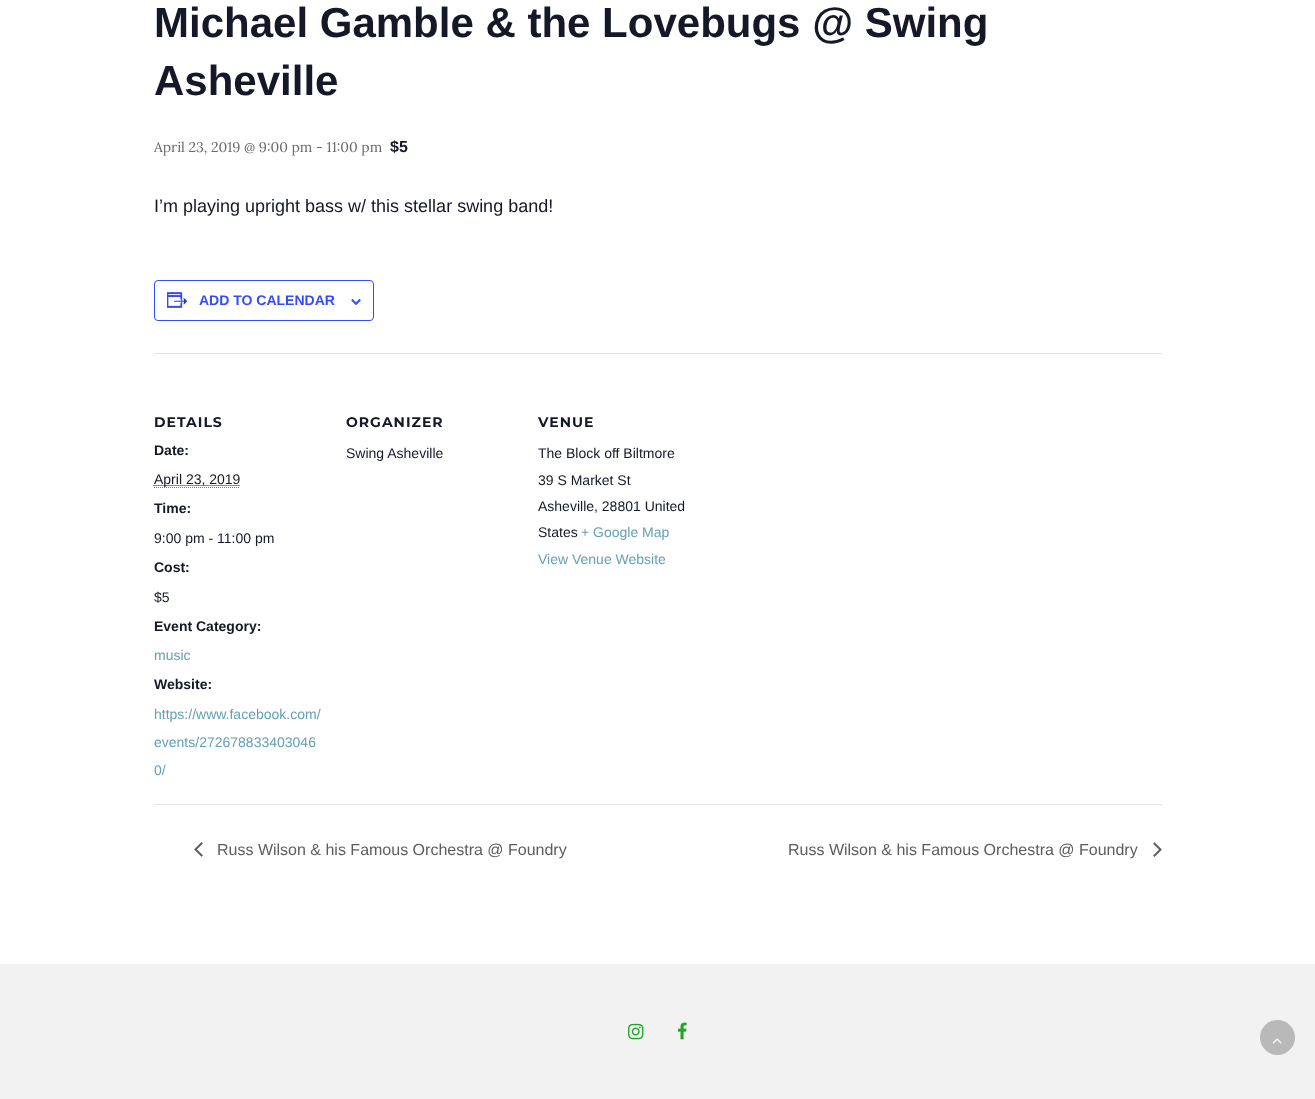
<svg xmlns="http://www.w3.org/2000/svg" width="1315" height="1099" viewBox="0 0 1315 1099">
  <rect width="100%" height="100%" fill="#fff"/>
  <rect x="154.5" y="280.5" width="219" height="40" rx="3.5" fill="none" stroke="#334aff"/>
  <image x="167" y="292" width="21" height="16" href="img/1.png"/>
  <image x="351" y="299" width="10" height="6" href="img/2.png"/>
  <path d="M154 353h1008v1H154z" fill="#e4e4e4"/>
  <path d="M154 487.5H240" fill="none" stroke="#777" stroke-dasharray="1 1"/>
  <path d="M153.5 485.5H240" fill="none" stroke="#141827" stroke-dasharray="1 1"/>
  <path d="M154 804h1008v1H154z" fill="#e4e4e4"/>
  <image x="194" y="842" width="9" height="15" href="img/3.png"/>
  <image x="1153" y="842" width="9" height="15" href="img/4.png"/>
  <path d="M0 964h1315v135H0z" fill="#f2f2f2"/>
  <image x="628" y="1023" width="16" height="17" href="img/5.png"/>
  <image x="677" y="1022" width="10" height="18" href="img/6.png"/>
  <circle cx="1277.5" cy="1037.5" r="17.5" fill="#b9b9b9"/>
  <image x="1272" y="1038" width="10" height="6" href="img/7.png"/>
  <g font-family="Liberation Sans" font-size="42" font-weight="bold" fill="#141827">
    <text x="154" y="37">Michael Gamble &amp; the Lovebugs @ Swing</text>
    <text x="154" y="95">Asheville</text>
  </g>
  <text x="154" y="152" font-family="Lora" font-size="14" fill="#696969">April 23, 2019 @ 9:00 pm - 11:00 pm</text>
  <text x="390" y="152" font-family="Liberation Sans" font-size="16" font-weight="bold" fill="#141827">$5</text>
  <text x="154" y="212" font-family="Liberation Sans" font-size="18" fill="#141827">I’m playing upright bass w/ this stellar swing band!</text>
  <text x="199" y="305" font-family="Liberation Sans" font-size="14" font-weight="bold" fill="#334aff">ADD TO CALENDAR</text>
  <text x="154" y="427" font-family="Montserrat" font-size="14" font-weight="bold" letter-spacing="1" fill="#141827">DETAILS</text>
  <text x="154" y="455" font-family="Liberation Sans" font-size="14" font-weight="bold" fill="#141827">Date:</text>
  <text x="154" y="484" font-family="Liberation Sans" font-size="14" fill="#141827">April 23, 2019</text>
  <text x="154" y="513" font-family="Liberation Sans" font-size="14" font-weight="bold" fill="#141827">Time:</text>
  <text x="154" y="543" font-family="Liberation Sans" font-size="14" fill="#141827">9:00 pm - 11:00 pm</text>
  <text x="154" y="572" font-family="Liberation Sans" font-size="14" font-weight="bold" fill="#141827">Cost:</text>
  <text x="154" y="602" font-family="Liberation Sans" font-size="14" fill="#141827">$5</text>
  <text x="154" y="631" font-family="Liberation Sans" font-size="14" font-weight="bold" fill="#141827">Event Category:</text>
  <text x="154" y="660" font-family="Liberation Sans" font-size="14" fill="#64a1b5">music</text>
  <text x="154" y="689" font-family="Liberation Sans" font-size="14" font-weight="bold" fill="#141827">Website:</text>
  <g font-family="Liberation Sans" font-size="14" fill="#64a1b5">
    <text x="154" y="719">https://www.facebook.com/</text>
    <text x="154" y="747">events/272678833403046</text>
    <text x="154" y="775">0/</text>
  </g>
  <text x="346" y="427" font-family="Montserrat" font-size="14" font-weight="bold" letter-spacing="1" fill="#141827">ORGANIZER</text>
  <text x="346" y="458" font-family="Liberation Sans" font-size="14" fill="#141827">Swing Asheville</text>
  <text x="538" y="427" font-family="Montserrat" font-size="14" font-weight="bold" letter-spacing="1" fill="#141827">VENUE</text>
  <g font-family="Liberation Sans" font-size="14" fill="#141827">
    <text x="538" y="458">The Block off Biltmore</text>
    <text x="538" y="485">39 S Market St</text>
    <text x="538" y="511">Asheville, 28801 United</text>
    <text x="538" y="537">States</text>
  </g>
  <g font-family="Liberation Sans" font-size="14" fill="#64a1b5">
    <text x="581" y="537">+ Google Map</text>
    <text x="538" y="564">View Venue Website</text>
  </g>
  <g font-family="Liberation Sans" font-size="16" fill="#5d5d5d">
    <text x="217" y="855">Russ Wilson &amp; his Famous Orchestra @ Foundry</text>
    <text x="788" y="855">Russ Wilson &amp; his Famous Orchestra @ Foundry</text>
  </g>
</svg>
